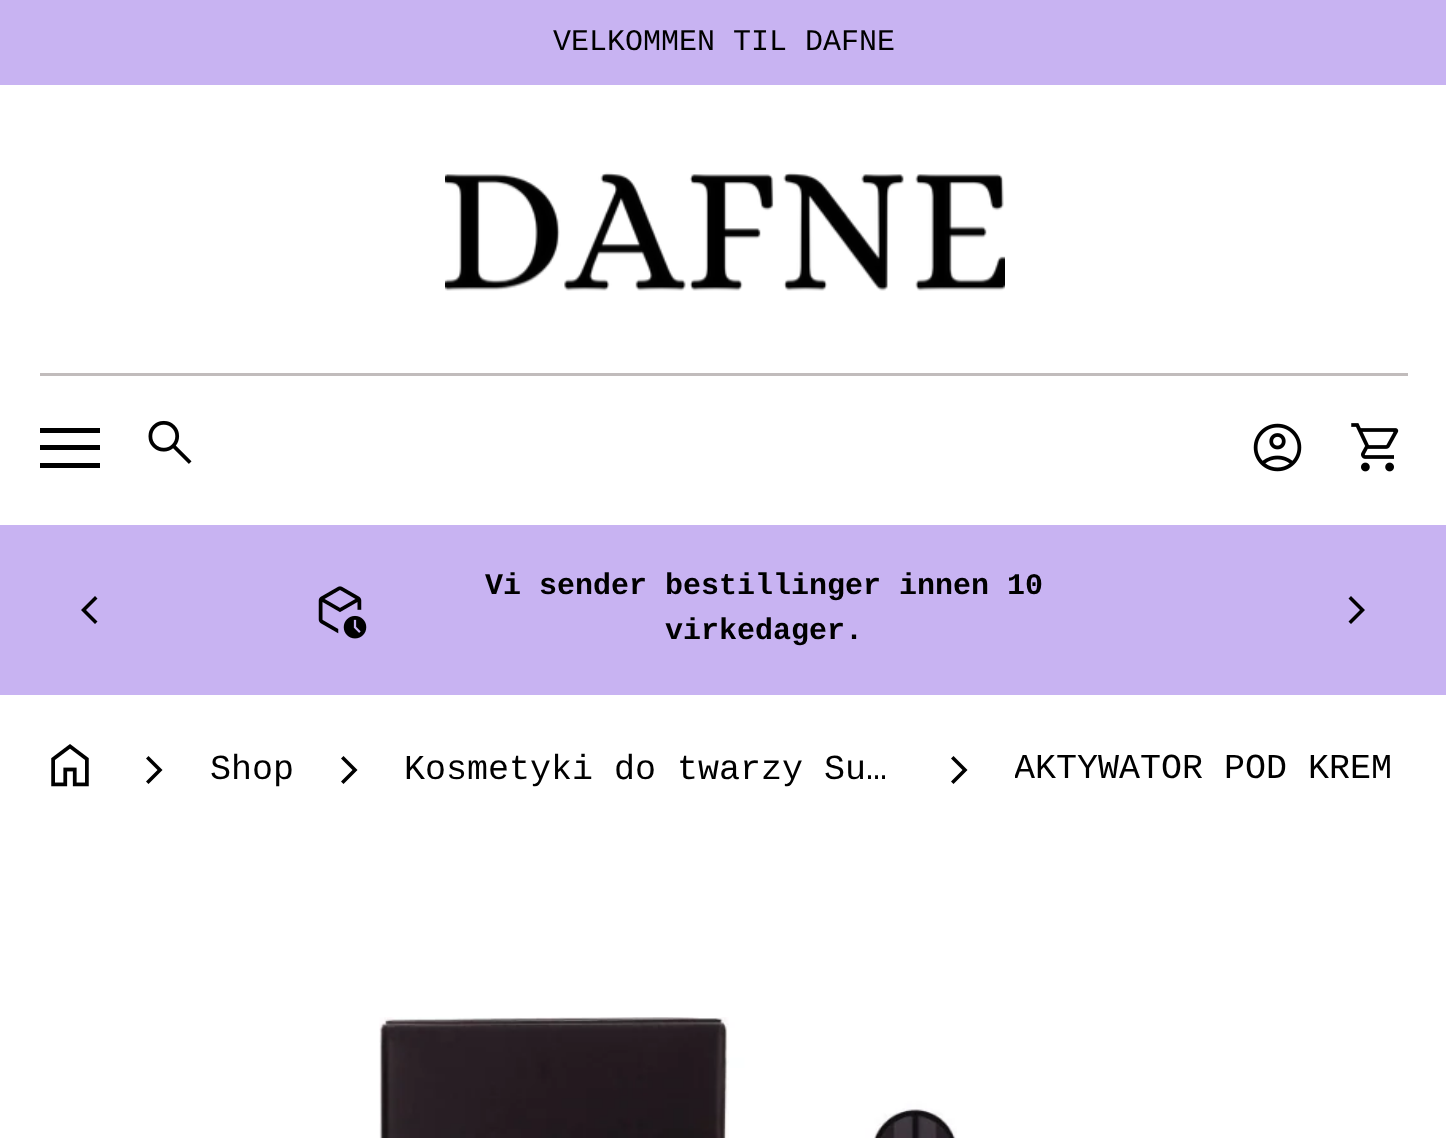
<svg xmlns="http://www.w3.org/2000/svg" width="1446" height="1138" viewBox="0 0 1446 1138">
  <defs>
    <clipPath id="clip1"><path d="M1015 743h393v52H1015z"/></clipPath>
  </defs>
  <rect width="100%" height="100%" fill="#fff"/>
  <path d="M0 0h1446v85H0z" fill="#c8b3f2"/>
  <image x="445" y="172" width="560" height="119" href="img/1.png"/>
  <path d="M40 373h1368v3H40z" fill="#c1bcbc"/>
  <path d="M40 428h60v5H40z" fill="#000"/>
  <path d="M40 445h60v5H40z" fill="#000"/>
  <path d="M40 463h60v5H40z" fill="#000"/>
  <image x="148" y="420" width="44" height="44" href="img/2.png"/>
  <image x="1253" y="423" width="49" height="49" href="img/3.png"/>
  <image x="1351" y="423" width="48" height="49" href="img/4.png"/>
  <path d="M0 525h1446v170H0z" fill="#c8b3f2"/>
  <path d="M95 624L81 610L95 596L97.5 598.5L86 610L97.5 621.5Z" fill="#000"/>
  <image x="318" y="586" width="49" height="53" href="img/5.png"/>
  <path d="M1360 610L1348.5 598.5L1351 596L1365 610L1351 624L1348.5 621.5Z" fill="#000"/>
  <image x="51" y="744" width="38" height="43" href="img/6.png"/>
  <path d="M157.5 770L146 758.5L148.5 756L162.5 770L148.5 784L146 781.5Z" fill="#000"/>
  <path d="M352.5 770L341 758.5L343.5 756L357.5 770L343.5 784L341 781.5Z" fill="#000"/>
  <path d="M962.5 770L951 758.5L953.5 756L967.5 770L953.5 784L951 781.5Z" fill="#000"/>
  <image x="379" y="1017" width="578" height="121" href="img/7.png"/>
  <text x="553" y="50" font-family="Liberation Mono" font-size="30" fill="#000">VELKOMMEN TIL DAFNE</text>
  <g font-family="Liberation Mono" font-size="30" font-weight="bold" fill="#000">
    <text x="485" y="594">Vi sender bestillinger innen 10</text>
    <text x="665" y="639">virkedager.</text>
  </g>
  <g font-family="Liberation Mono" font-size="35" fill="#000">
    <text x="210" y="779">Shop</text>
    <text x="404" y="779">Kosmetyki do twarzy Su…</text>
  </g>
  <g clip-path="url(#clip1)">
    <text x="1014" y="778" font-family="Liberation Mono" font-size="35" fill="#000">AKTYWATOR POD KREM</text>
  </g>
</svg>
